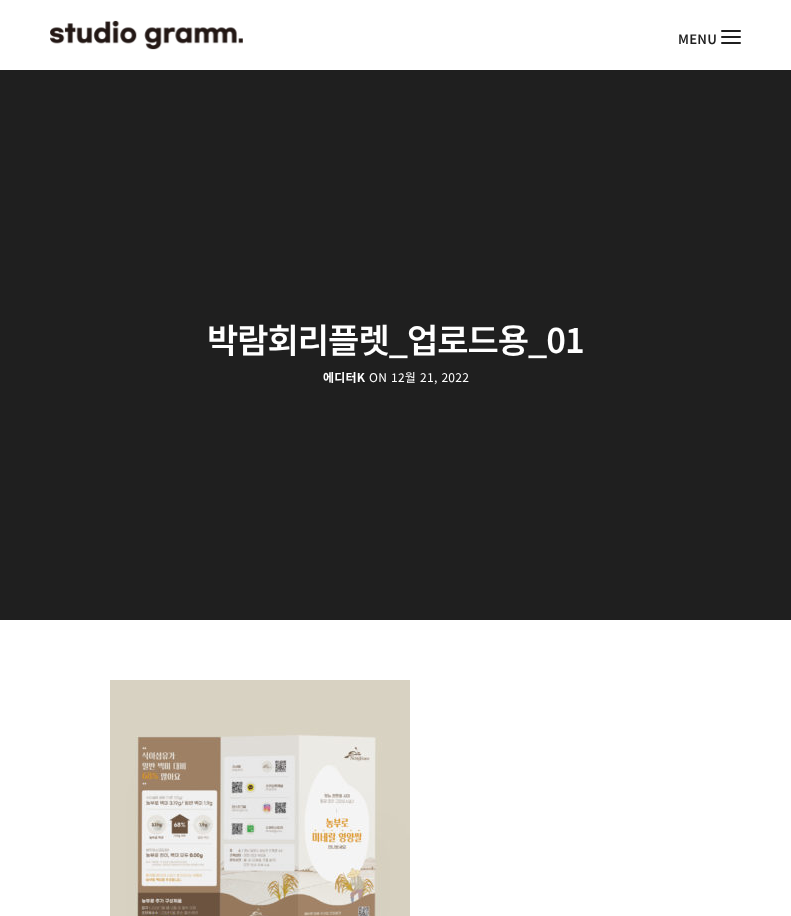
<svg xmlns="http://www.w3.org/2000/svg" width="791" height="916" viewBox="0 0 791 916">
  <style>*{font-kerning:none!important;font-variant-ligatures:none!important}</style>
  <rect width="100%" height="100%" fill="#fff"/>
  <image x="50" y="20" width="193" height="30" href="img/1.png"/>
  <rect x="721" y="30" width="20" height="2" rx="1" fill="#1f1f1f"/>
  <rect x="721" y="36" width="20" height="2" rx="1" fill="#1f1f1f"/>
  <rect x="721" y="42" width="20" height="2" rx="1" fill="#1f1f1f"/>
  <path d="M0 70h791v550H0z" fill="#1f1f1f"/>
  <image x="110" y="680" width="300" height="236" href="img/2.png"/>
  <text x="678" y="44" font-family="Noto Sans KR" font-size="13" font-weight="600" letter-spacing="0.25" fill="#1f1f1f">MENU</text>
  <text x="207" y="353" font-family="Noto Sans KR" font-size="34" font-weight="600" letter-spacing="-1" fill="#fff">박람회리플렛_업로드용_01</text>
  <text x="323" y="382" font-family="Noto Sans KR" font-size="12" font-weight="bold" letter-spacing="0.25" fill="#fff">에디터K</text>
  <text x="369" y="382" word-spacing="1" font-family="Noto Sans KR" font-size="12" letter-spacing="0.25" fill="#fff">ON 12월 21, 2022</text>
</svg>
